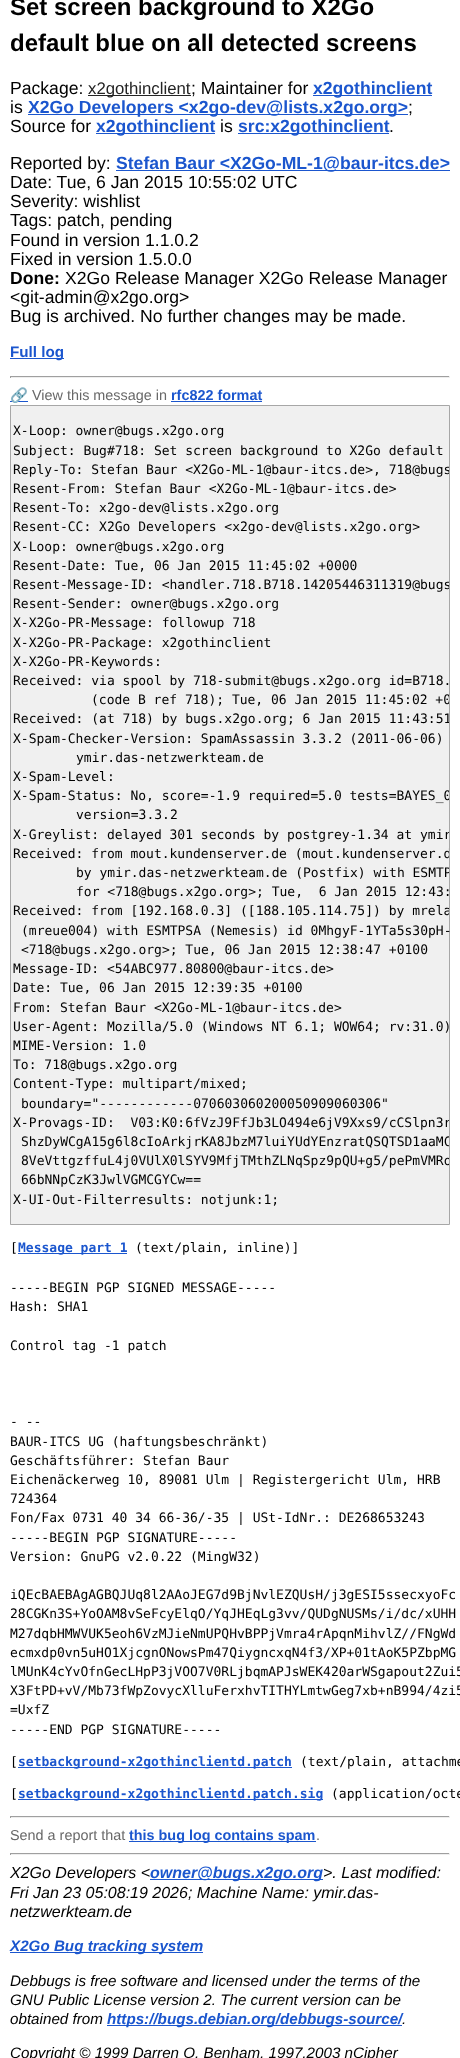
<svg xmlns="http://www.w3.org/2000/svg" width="460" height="2058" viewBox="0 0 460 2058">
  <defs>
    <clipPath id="clip1"><path d="M11 406h438v818H11z"/></clipPath>
  </defs>
  <rect width="100%" height="100%" fill="#fff"/>
  <path d="M88 95h103v1H88z" fill="#242424"/>
  <path d="M313 95h119v1H313z" fill="#1b56ce"/>
  <path d="M28 114h380v1H28z" fill="#1b56ce"/>
  <path d="M96 133h119v1H96z" fill="#1b56ce"/>
  <path d="M238 133h151v1H238z" fill="#1b56ce"/>
  <path d="M116 170h334v1H116z" fill="#1b56ce"/>
  <path d="M10 358h54v1H10z" fill="#1b56ce"/>
  <path d="M10 376h440v1H10z" fill="#9f9f9f"/>
  <path d="M449 376h1v2H449z" fill="#eee"/>
  <path d="M10 377h440v1H10z" fill="#eee"/>
  <path d="M10 376h1v2H10z" fill="#9f9f9f"/>
  <path d="M10 401h18v1H10z" fill="#1b56ce"/>
  <path d="M171 401h91v1H171z" fill="#1b56ce"/>
  <path d="M10.5 405.5h439v819H10.5z" fill="#f0f0f0" stroke="#a7a7a7"/>
  <path d="M18 1253h109v1H18z" fill="#1b56ce"/>
  <path d="M18 1767h274v1H18z" fill="#1b56ce"/>
  <path d="M18 1799h305v1H18z" fill="#1b56ce"/>
  <path d="M10 1816h440v1H10z" fill="#9f9f9f"/>
  <path d="M449 1816h1v2H449z" fill="#eee"/>
  <path d="M10 1817h440v1H10z" fill="#eee"/>
  <path d="M10 1816h1v2H10z" fill="#9f9f9f"/>
  <path d="M129 1841h187v1H129z" fill="#1b56ce"/>
  <path d="M10 1853h440v1H10z" fill="#9f9f9f"/>
  <path d="M449 1853h1v2H449z" fill="#eee"/>
  <path d="M10 1854h440v1H10z" fill="#eee"/>
  <path d="M10 1853h1v2H10z" fill="#9f9f9f"/>
  <path d="M150 1879h173v1H150z" fill="#1b56ce"/>
  <path d="M10 1952h193v1H10z" fill="#1b56ce"/>
  <path d="M107 2025h295v1H107z" fill="#1b56ce"/>
  <g font-family="Liberation Sans" font-size="24" font-weight="bold" fill="#000">
    <text x="10" y="15">Set screen background to X2Go</text>
    <text x="10" y="51">default blue on all detected screens</text>
  </g>
  <text x="10" y="94" font-family="Liberation Sans" font-size="17.6" fill="#000">Package:</text>
  <text x="88" y="94" font-family="Liberation Sans" font-size="16.75" fill="#242424">x2gothinclient</text>
  <text x="191" y="94" font-family="Liberation Sans" font-size="17.6" fill="#000">; Maintainer for</text>
  <text x="313" y="94" font-family="Liberation Sans" font-size="17.6" font-weight="bold" fill="#1b56ce">x2gothinclient</text>
  <text x="10" y="113" font-family="Liberation Sans" font-size="17.6" fill="#000">is</text>
  <text x="28" y="113" font-family="Liberation Sans" font-size="17.6" font-weight="bold" fill="#1b56ce">X2Go Developers &lt;x2go-dev@lists.x2go.org&gt;</text>
  <g font-family="Liberation Sans" font-size="17.6" fill="#000">
    <text x="408" y="113">;</text>
    <text x="10" y="132">Source for</text>
  </g>
  <text x="96" y="132" font-family="Liberation Sans" font-size="17.6" font-weight="bold" fill="#1b56ce">x2gothinclient</text>
  <text x="220" y="132" font-family="Liberation Sans" font-size="17.6" fill="#000">is</text>
  <text x="238" y="132" font-family="Liberation Sans" font-size="17.6" font-weight="bold" fill="#1b56ce">src:x2gothinclient</text>
  <g font-family="Liberation Sans" font-size="17.6" fill="#000">
    <text x="389" y="132">.</text>
    <text x="10" y="169">Reported by:</text>
  </g>
  <text x="116" y="169" font-family="Liberation Sans" font-size="17.6" font-weight="bold" fill="#1b56ce">Stefan Baur &lt;X2Go-ML-1@baur-itcs.de&gt;</text>
  <g font-family="Liberation Sans" font-size="17.6" fill="#000">
    <text x="10" y="188">Date: Tue, 6 Jan 2015 10:55:02 UTC</text>
    <text x="10" y="207">Severity: wishlist</text>
    <text x="10" y="226">Tags: patch, pending</text>
    <text x="10" y="246">Found in version 1.1.0.2</text>
    <text x="10" y="265">Fixed in version 1.5.0.0</text>
  </g>
  <text x="10" y="284" font-family="Liberation Sans" font-size="17.6" font-weight="bold" fill="#000">Done:</text>
  <g font-family="Liberation Sans" font-size="17.6" fill="#000">
    <text x="65" y="284">X2Go Release Manager X2Go Release Manager</text>
    <text x="10" y="303">&lt;git-admin@x2go.org&gt;</text>
    <text x="10" y="322">Bug is archived. No further changes may be made.</text>
  </g>
  <text x="10" y="357" font-family="Liberation Sans" font-size="15.2" font-weight="bold" fill="#1b56ce">Full log</text>
  <text x="10" y="400" font-family="Noto Color Emoji" font-size="14.4" font-weight="bold" fill="#1b56ce">🔗</text>
  <text x="32" y="400" font-family="Liberation Sans" font-size="14.4" fill="#686868">View this message in</text>
  <text x="171" y="400" font-family="Liberation Sans" font-size="14.4" font-weight="bold" fill="#1b56ce">rfc822 format</text>
  <g font-family="DejaVu Sans Mono" font-size="13" fill="#000">
    <text x="13" y="435">X-Loop: owner@bugs.x2go.org</text>
    <text x="13" y="455">Subject: Bug#718: Set screen background to X2Go default</text>
  </g>
  <g clip-path="url(#clip1)">
    <text x="13" y="474" font-family="DejaVu Sans Mono" font-size="13" fill="#000">Reply-To: Stefan Baur &lt;X2Go-ML-1@baur-itcs.de&gt;, 718@bugs</text>
  </g>
  <g font-family="DejaVu Sans Mono" font-size="13" fill="#000">
    <text x="13" y="493">Resent-From: Stefan Baur &lt;X2Go-ML-1@baur-itcs.de&gt;</text>
    <text x="13" y="512">Resent-To: x2go-dev@lists.x2go.org</text>
    <text x="13" y="531">Resent-CC: X2Go Developers &lt;x2go-dev@lists.x2go.org&gt;</text>
    <text x="13" y="551">X-Loop: owner@bugs.x2go.org</text>
    <text x="13" y="570">Resent-Date: Tue, 06 Jan 2015 11:45:02 +0000</text>
  </g>
  <g clip-path="url(#clip1)">
    <text x="13" y="589" font-family="DejaVu Sans Mono" font-size="13" fill="#000">Resent-Message-ID: &lt;handler.718.B718.14205446311319@bugs</text>
  </g>
  <g font-family="DejaVu Sans Mono" font-size="13" fill="#000">
    <text x="13" y="608">Resent-Sender: owner@bugs.x2go.org</text>
    <text x="13" y="627">X-X2Go-PR-Message: followup 718</text>
    <text x="13" y="647">X-X2Go-PR-Package: x2gothinclient</text>
    <text x="13" y="666">X-X2Go-PR-Keywords:</text>
    <text x="13" y="685">Received: via spool by 718-submit@bugs.x2go.org id=B718.</text>
  </g>
  <g clip-path="url(#clip1)">
    <g font-family="DejaVu Sans Mono" font-size="13" fill="#000">
      <text x="91" y="704">(code B ref 718); Tue, 06 Jan 2015 11:45:02 +0</text>
      <text x="13" y="723">Received: (at 718) by bugs.x2go.org; 6 Jan 2015 11:43:51</text>
    </g>
  </g>
  <g font-family="DejaVu Sans Mono" font-size="13" fill="#000">
    <text x="13" y="743">X-Spam-Checker-Version: SpamAssassin 3.3.2 (2011-06-06)</text>
    <text x="76" y="762">ymir.das-netzwerkteam.de</text>
    <text x="13" y="781">X-Spam-Level:</text>
  </g>
  <g clip-path="url(#clip1)">
    <text x="13" y="800" font-family="DejaVu Sans Mono" font-size="13" fill="#000">X-Spam-Status: No, score=-1.9 required=5.0 tests=BAYES_0</text>
  </g>
  <text x="76" y="819" font-family="DejaVu Sans Mono" font-size="13" fill="#000">version=3.3.2</text>
  <g clip-path="url(#clip1)">
    <g font-family="DejaVu Sans Mono" font-size="13" fill="#000">
      <text x="13" y="839">X-Greylist: delayed 301 seconds by postgrey-1.34 at ymir</text>
      <text x="13" y="858">Received: from mout.kundenserver.de (mout.kundenserver.d</text>
      <text x="76" y="877">by ymir.das-netzwerkteam.de (Postfix) with ESMTP</text>
    </g>
  </g>
  <text x="76" y="896" font-family="DejaVu Sans Mono" font-size="13" fill="#000" xml:space="preserve">for &lt;718@bugs.x2go.org&gt;; Tue,  6 Jan 2015 12:43:</text>
  <g clip-path="url(#clip1)">
    <text x="13" y="915" font-family="DejaVu Sans Mono" font-size="13" fill="#000">Received: from [192.168.0.3] ([188.105.114.75]) by mrela</text>
  </g>
  <g font-family="DejaVu Sans Mono" font-size="13" fill="#000">
    <text x="21" y="935">(mreue004) with ESMTPSA (Nemesis) id 0MhgyF-1YTa5s30pH-</text>
    <text x="21" y="954">&lt;718@bugs.x2go.org&gt;; Tue, 06 Jan 2015 12:38:47 +0100</text>
    <text x="13" y="973">Message-ID: &lt;54ABC977.80800@baur-itcs.de&gt;</text>
    <text x="13" y="992">Date: Tue, 06 Jan 2015 12:39:35 +0100</text>
    <text x="13" y="1012">From: Stefan Baur &lt;X2Go-ML-1@baur-itcs.de&gt;</text>
    <text x="13" y="1031">User-Agent: Mozilla/5.0 (Windows NT 6.1; WOW64; rv:31.0)</text>
    <text x="13" y="1050">MIME-Version: 1.0</text>
    <text x="13" y="1069">To: 718@bugs.x2go.org</text>
    <text x="13" y="1088">Content-Type: multipart/mixed;</text>
    <text x="21" y="1108">boundary="------------070603060200050909060306"</text>
  </g>
  <g clip-path="url(#clip1)">
    <g font-family="DejaVu Sans Mono" font-size="13" fill="#000">
      <text x="13" y="1127" xml:space="preserve">X-Provags-ID:  V03:K0:6fVzJ9FfJb3LO494e6jV9Xxs9/cCSlpn3r</text>
      <text x="21" y="1146">ShzDyWCgA15g6l8cIoArkjrKA8JbzM7luiYUdYEnzratQSQTSD1aaMC</text>
      <text x="21" y="1165">8VeVttgzffuL4j0VUlX0lSYV9MfjTMthZLNqSpz9pQU+g5/pePmVMRo</text>
    </g>
  </g>
  <g font-family="DejaVu Sans Mono" font-size="13" fill="#000">
    <text x="21" y="1184">66bNNpCzK3JwlVGMCGYCw==</text>
    <text x="13" y="1204">X-UI-Out-Filterresults: notjunk:1;</text>
    <text x="10" y="1252">[</text>
  </g>
  <text x="18" y="1252" font-family="DejaVu Sans Mono" font-size="13" font-weight="bold" fill="#1b56ce">Message part 1</text>
  <g font-family="DejaVu Sans Mono" font-size="13" fill="#000">
    <text x="135" y="1252">(text/plain, inline)]</text>
    <text x="10" y="1292">-----BEGIN PGP SIGNED MESSAGE-----</text>
    <text x="10" y="1311">Hash: SHA1</text>
    <text x="10" y="1350">Control tag -1 patch</text>
    <text x="10" y="1426">- --</text>
    <text x="10" y="1446">BAUR-ITCS UG (haftungsbeschränkt)</text>
    <text x="10" y="1465">Geschäftsführer: Stefan Baur</text>
    <text x="10" y="1484">Eichenäckerweg 10, 89081 Ulm | Registergericht Ulm, HRB</text>
    <text x="10" y="1503">724364</text>
    <text x="10" y="1522">Fon/Fax 0731 40 34 66-36/-35 | USt-IdNr.: DE268653243</text>
    <text x="10" y="1542">-----BEGIN PGP SIGNATURE-----</text>
    <text x="10" y="1561">Version: GnuPG v2.0.22 (MingW32)</text>
    <text x="10" y="1599">iQEcBAEBAgAGBQJUq8l2AAoJEG7d9BjNvlEZQUsH/j3gESI5ssecxyoFc</text>
    <text x="10" y="1618">28CGKn3S+YoOAM8vSeFcyElqO/YqJHEqLg3vv/QUDgNUSMs/i/dc/xUHH</text>
    <text x="10" y="1638">M27dqbHMWVUK5eoh6VzMJieNmUPQHvBPPjVmra4rApqnMihvlZ//FNgWd</text>
    <text x="10" y="1657">ecmxdp0vn5uHO1XjcgnONowsPm47QiygncxqN4f3/XP+01tAoK5PZbpMG</text>
    <text x="10" y="1676">lMUnK4cYvOfnGecLHpP3jVOO7V0RLjbqmAPJsWEK420arWSgapout2Zui5</text>
    <text x="10" y="1695">X3FtPD+vV/Mb73fWpZovycXlluFerxhvTITHYLmtwGeg7xb+nB994/4zi5</text>
    <text x="10" y="1714">=UxfZ</text>
    <text x="10" y="1734">-----END PGP SIGNATURE-----</text>
    <text x="10" y="1766">[</text>
  </g>
  <text x="18" y="1766" font-family="DejaVu Sans Mono" font-size="13" font-weight="bold" fill="#1b56ce">setbackground-x2gothinclientd.patch</text>
  <g font-family="DejaVu Sans Mono" font-size="13" fill="#000">
    <text x="300" y="1766">(text/plain, attachme</text>
    <text x="10" y="1798">[</text>
  </g>
  <text x="18" y="1798" font-family="DejaVu Sans Mono" font-size="13" font-weight="bold" fill="#1b56ce">setbackground-x2gothinclientd.patch.sig</text>
  <text x="331" y="1798" font-family="DejaVu Sans Mono" font-size="13" fill="#000">(application/octe</text>
  <text x="10" y="1840" font-family="Liberation Sans" font-size="14.4" fill="#686868">Send a report that</text>
  <text x="129" y="1840" font-family="Liberation Sans" font-size="14.4" font-weight="bold" fill="#1b56ce">this bug log contains spam</text>
  <text x="316" y="1840" font-family="Liberation Sans" font-size="14.4" fill="#686868">.</text>
  <text x="10" y="1878" font-family="Liberation Sans" font-size="16" font-style="italic" fill="#000">X2Go Developers &lt;</text>
  <text x="150" y="1878" font-family="Liberation Sans" font-size="16" font-weight="bold" font-style="italic" fill="#1b56ce">owner@bugs.x2go.org</text>
  <g font-family="Liberation Sans" font-size="16" font-style="italic" fill="#000">
    <text x="323" y="1878">&gt;. Last modified:</text>
    <text x="10" y="1898">Fri Jan 23 05:08:19 2026; Machine Name: ymir.das-</text>
    <text x="10" y="1917">netzwerkteam.de</text>
  </g>
  <text x="10" y="1951" font-family="Liberation Sans" font-size="15.2" font-weight="bold" font-style="italic" fill="#1b56ce">X2Go Bug tracking system</text>
  <g font-family="Liberation Sans" font-size="15.2" font-style="italic" fill="#000">
    <text x="10" y="1986">Debbugs is free software and licensed under the terms of the</text>
    <text x="10" y="2005">GNU Public License version 2. The current version can be</text>
    <text x="10" y="2024">obtained from</text>
  </g>
  <text x="107" y="2024" font-family="Liberation Sans" font-size="15.2" font-weight="bold" font-style="italic" fill="#1b56ce">https://bugs.debian.org/debbugs-source/</text>
  <g font-family="Liberation Sans" font-size="15.2" font-style="italic" fill="#000">
    <text x="402" y="2024">.</text>
    <text x="10" y="2058">Copyright © 1999 Darren O. Benham, 1997,2003 nCipher</text>
  </g>
</svg>
